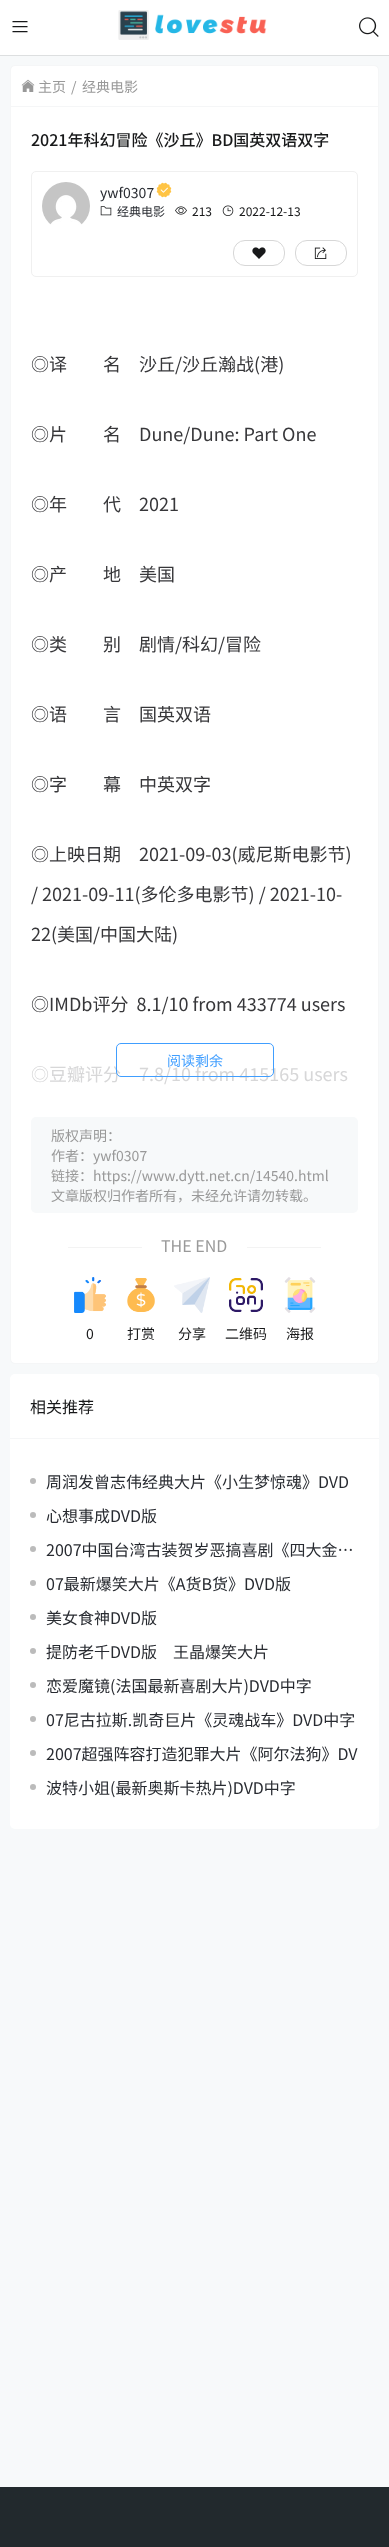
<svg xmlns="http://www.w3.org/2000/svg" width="389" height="2547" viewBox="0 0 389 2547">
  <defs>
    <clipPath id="clip1"><path d="M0 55h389v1H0z"/></clipPath>
  </defs>
  <rect width="100%" height="100%" fill="#f7f9fa"/>
  <path d="M0 0h389v55H0z" fill="#fff"/>
  <g clip-path="url(#clip1)">
    <path d="M0 0h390v56H0z" fill="#0000001a" filter="blur(0.5px)"/>
  </g>
  <image x="12" y="21" width="16" height="12" href="img/1.png"/>
  <image x="118" y="10" width="149" height="30" href="img/2.png"/>
  <image x="359" y="17" width="20" height="20" href="img/3.png"/>
  <rect x="10.5" y="65.5" width="368" height="1298" rx="4.5" fill="#fff" stroke="#f5f6f7"/>
  <path d="M11 106h367v1H11z" fill="#f5f6f7"/>
  <image x="21" y="79" width="14" height="13" href="img/4.png"/>
  <rect x="31.5" y="171.5" width="326" height="105" rx="4.5" fill="none" stroke="#f0f0f0"/>
  <image x="42" y="182" width="48" height="43" href="img/5.png"/>
  <image x="156" y="182" width="16" height="16" href="img/6.png"/>
  <image x="100" y="206" width="12" height="10" href="img/7.png"/>
  <image x="175" y="206" width="12" height="9" href="img/8.png"/>
  <image x="222" y="205" width="12" height="11" href="img/9.png"/>
  <rect x="233.5" y="240.5" width="51" height="25" rx="11.5" fill="none" stroke="#d7d7d7"/>
  <image x="252" y="247" width="14" height="12" href="img/10.png"/>
  <rect x="295.5" y="240.5" width="51" height="25" rx="11.5" fill="none" stroke="#d7d7d7"/>
  <image x="314" y="247" width="13" height="12" href="img/11.png"/>
  <rect x="31" y="1117" width="327" height="96" rx="5" fill="#f7f9fa"/>
  <path d="M68 1247h74v1H68z" fill="#f3f3f3"/>
  <path d="M247 1247h74v1H247z" fill="#f3f3f3"/>
  <image x="74" y="1277" width="32" height="36" href="img/12.png"/>
  <image x="127" y="1278" width="28" height="34" href="img/13.png"/>
  <image x="174" y="1277" width="36" height="36" href="img/14.png"/>
  <image x="229" y="1278" width="34" height="34" href="img/15.png"/>
  <image x="284" y="1277" width="32" height="36" href="img/16.png"/>
  <rect x="10" y="1374" width="369" height="455" rx="5" fill="#fff"/>
  <path d="M10 1438h369v1H10z" fill="#f5f6f7"/>
  <circle cx="33" cy="1481" r="3" fill="#bbb"/>
  <circle cx="33" cy="1515" r="3" fill="#bbb"/>
  <circle cx="33" cy="1549" r="3" fill="#bbb"/>
  <circle cx="33" cy="1583" r="3" fill="#bbb"/>
  <circle cx="33" cy="1617" r="3" fill="#bbb"/>
  <circle cx="33" cy="1651" r="3" fill="#bbb"/>
  <circle cx="33" cy="1685" r="3" fill="#bbb"/>
  <circle cx="33" cy="1719" r="3" fill="#bbb"/>
  <circle cx="33" cy="1753" r="3" fill="#bbb"/>
  <circle cx="33" cy="1787" r="3" fill="#bbb"/>
  <path d="M0 2487h389v60H0z" fill="#22292d"/>
  <g font-family="Noto Sans CJK SC" font-size="14" fill="#999">
    <text x="38" y="92">主页</text>
    <text x="71" y="92">/</text>
    <text x="82" y="92">经典电影</text>
  </g>
  <text x="31" y="146" font-family="Noto Sans CJK SC" font-size="16" font-weight="500" fill="#18191a">2021年科幻冒险《沙丘》BD国英双语双字</text>
  <text x="100" y="198" font-family="Noto Sans CJK SC" font-size="14" fill="#282b31">ywf0307</text>
  <text x="117" y="216" font-family="Noto Sans CJK SC" font-size="12" fill="#282b31">经典电影</text>
  <g font-family="Noto Sans CJK SC" font-size="12" fill="#18191a">
    <text x="192" y="216">213</text>
    <text x="239" y="216">2022-12-13</text>
  </g>
  <g font-family="Noto Sans CJK SC" font-size="18" fill="#37373a">
    <text x="31" y="371">◎译　　名　沙丘/沙丘瀚战(港)</text>
    <text x="31" y="441">◎片　　名　Dune/Dune: Part One</text>
    <text x="31" y="511">◎年　　代　2021</text>
    <text x="31" y="581">◎产　　地　美国</text>
    <text x="31" y="651">◎类　　别　剧情/科幻/冒险</text>
    <text x="31" y="721">◎语　　言　国英双语</text>
    <text x="31" y="791">◎字　　幕　中英双字</text>
    <text x="31" y="861">◎上映日期　2021-09-03(威尼斯电影节)</text>
    <text x="31" y="901">/ 2021-09-11(多伦多电影节) / 2021-10-</text>
    <text x="31" y="941">22(美国/中国大陆)</text>
    <text x="31" y="1011" xml:space="preserve">◎IMDb评分  8.1/10 from 433774 users</text>
  </g>
  <text x="31" y="1081" font-family="Noto Sans CJK SC" font-size="18" fill="#d7d7d8">◎豆瓣评分　7.8/10 from 415165 users</text>
  <rect x="116.5" y="1043.5" width="157" height="33" rx="4.5" fill="none" stroke="#409eff"/>
  <text x="167" y="1066" font-family="Noto Sans CJK SC" font-size="14" fill="#409eff">阅读剩余</text>
  <g font-family="Noto Sans CJK SC" font-size="14" fill="#999">
    <text x="51" y="1141">版权声明：</text>
    <text x="51" y="1161">作者：ywf0307</text>
    <text x="51" y="1181">链接：https://www.dytt.net.cn/14540.html</text>
    <text x="51" y="1201">文章版权归作者所有，未经允许请勿转载。</text>
  </g>
  <text x="161" y="1252" font-family="Noto Sans CJK SC" font-size="16" fill="#999">THE END</text>
  <g font-family="Noto Sans CJK SC" font-size="14" fill="#18191a">
    <text x="86" y="1339">0</text>
    <text x="127" y="1339">打赏</text>
    <text x="178" y="1339">分享</text>
    <text x="225" y="1339">二维码</text>
    <text x="286" y="1339">海报</text>
  </g>
  <text x="30" y="1413" font-family="Noto Sans CJK SC" font-size="16" fill="#18191a">相关推荐</text>
  <g font-family="Noto Sans CJK SC" font-size="16" fill="#282b31">
    <text x="46" y="1488">周润发曾志伟经典大片《小生梦惊魂》DVD</text>
    <text x="46" y="1522">心想事成DVD版</text>
    <text x="46" y="1556">2007中国台湾古装贺岁恶搞喜剧《四大金…</text>
    <text x="46" y="1590">07最新爆笑大片《A货B货》DVD版</text>
    <text x="46" y="1624">美女食神DVD版</text>
    <text x="46" y="1658">提防老千DVD版　王晶爆笑大片</text>
    <text x="46" y="1692">恋爱魔镜(法国最新喜剧大片)DVD中字</text>
    <text x="46" y="1726">07尼古拉斯.凯奇巨片《灵魂战车》DVD中字</text>
    <text x="46" y="1760">2007超强阵容打造犯罪大片《阿尔法狗》DV</text>
    <text x="46" y="1794">波特小姐(最新奥斯卡热片)DVD中字</text>
  </g>
</svg>
